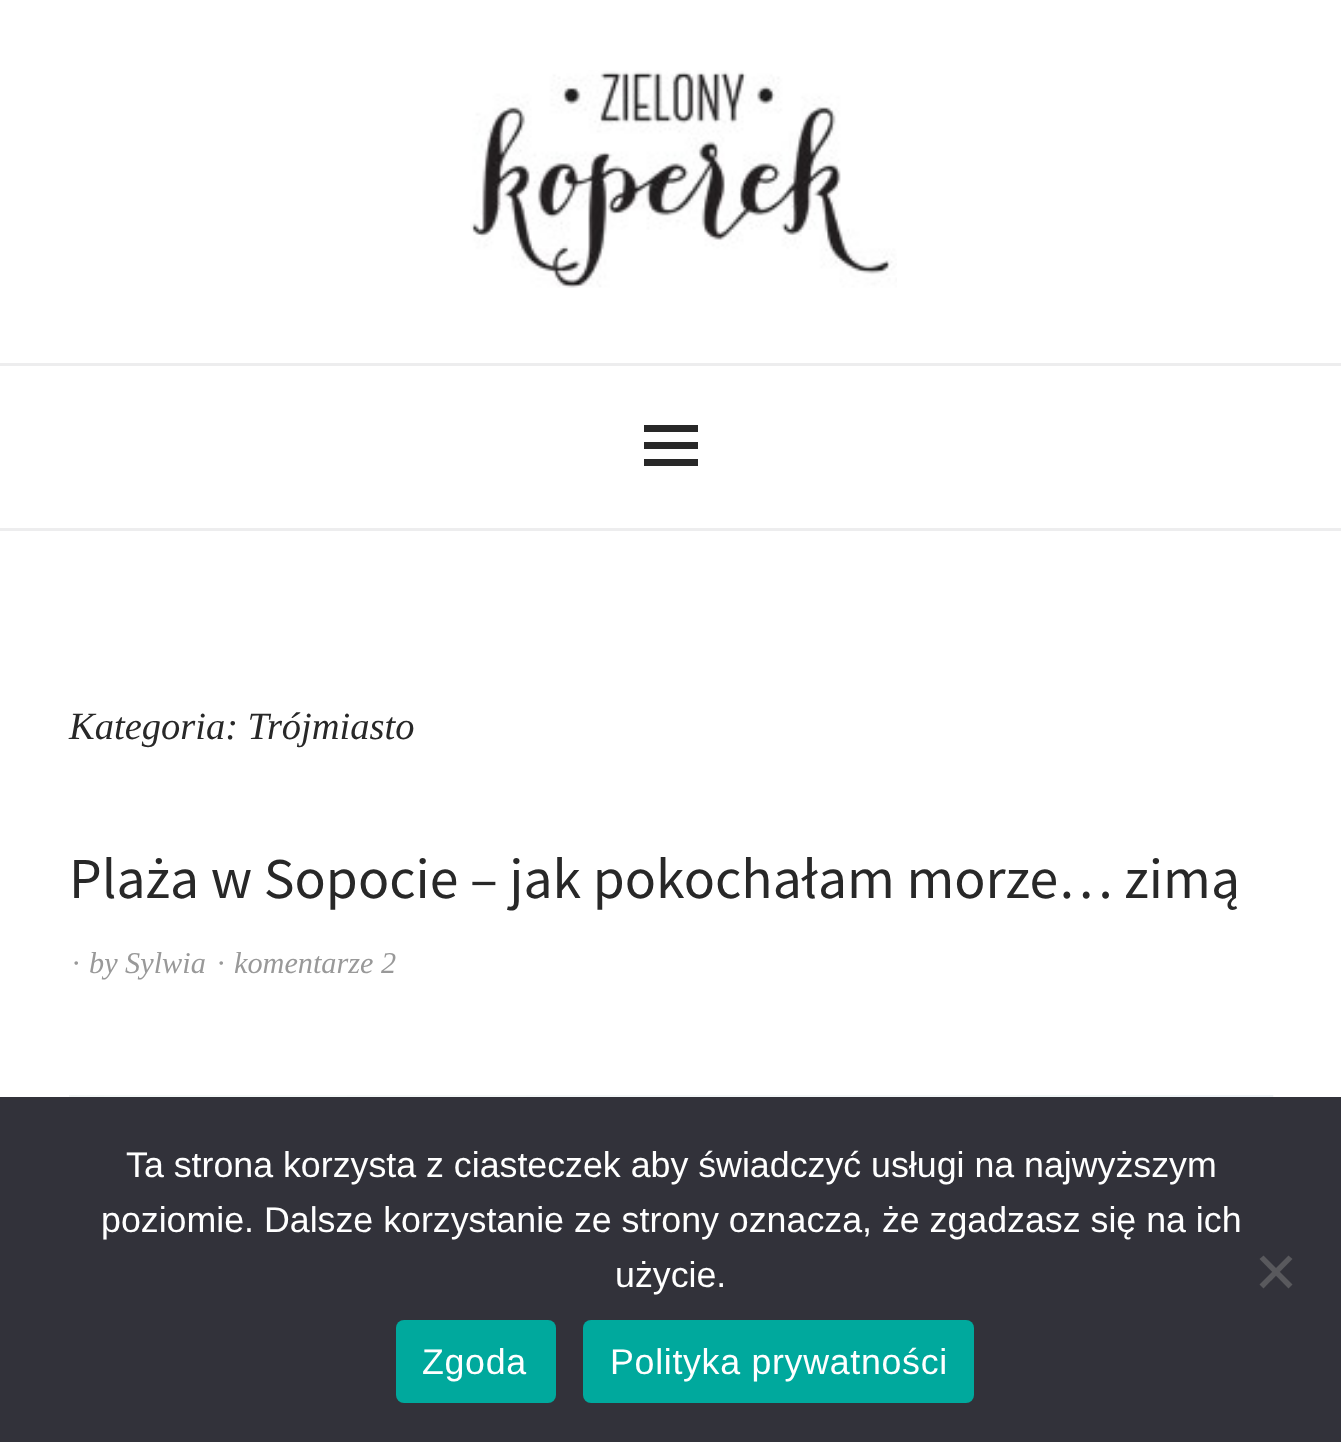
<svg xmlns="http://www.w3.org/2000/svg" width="1341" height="1442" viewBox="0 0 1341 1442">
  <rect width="100%" height="100%" fill="#fff"/>
  <path d="M0 363h1341v3H0z" fill="#ededee"/>
  <image x="470" y="70" width="427" height="218" href="img/1.png"/>
  <path d="M0 528h1341v3H0z" fill="#ededee"/>
  <path d="M644 466V459H698V466ZM644 425H698V432H644ZM644 449V442H698V449Z" fill="#282828"/>
  <image x="69" y="1095" width="1205" height="2" href="img/2.png"/>
  <path d="M0 1097h1341v345H0z" fill="#32323a"/>
  <path d="M1288.5 1255.5L1292.5 1259L1263.5 1288.5L1259.5 1284.5Z" fill="#59595d"/>
  <path d="M1259.5 1259L1263.5 1255.5L1292.5 1284.5L1288.5 1288.5Z" fill="#59595d"/>
  <rect x="396" y="1320" width="160" height="83" rx="8" fill="#00a99d"/>
  <rect x="583" y="1320" width="391" height="83" rx="8" fill="#00a99d"/>
  <text x="69" y="739" font-family="Liberation Serif" font-size="38.5" font-style="italic" fill="#282828">Kategoria: Trójmiasto</text>
  <text x="69" y="898" font-family="Source Sans Pro" font-size="57.75" fill="#282828">Plaża w Sopocie – jak pokochałam morze… zimą</text>
  <g font-family="Liberation Serif" font-size="30.25" font-style="italic" fill="#999">
    <text x="72" y="973">∙</text>
    <text x="89" y="973">by Sylwia</text>
    <text x="217" y="973">∙</text>
    <text x="234" y="973">komentarze 2</text>
  </g>
  <g font-family="Liberation Sans" font-size="35.75" fill="#fff">
    <text x="126" y="1177">Ta strona korzysta z ciasteczek aby świadczyć usługi na najwyższym</text>
    <text x="101" y="1232">poziomie. Dalsze korzystanie ze strony oznacza, że zgadzasz się na ich</text>
    <text x="615" y="1287">użycie.</text>
  </g>
  <g font-family="Liberation Sans" font-size="35.75" letter-spacing="0.7" fill="#fff">
    <text x="422" y="1374">Zgoda</text>
    <text x="610" y="1374">Polityka prywatności</text>
  </g>
</svg>
